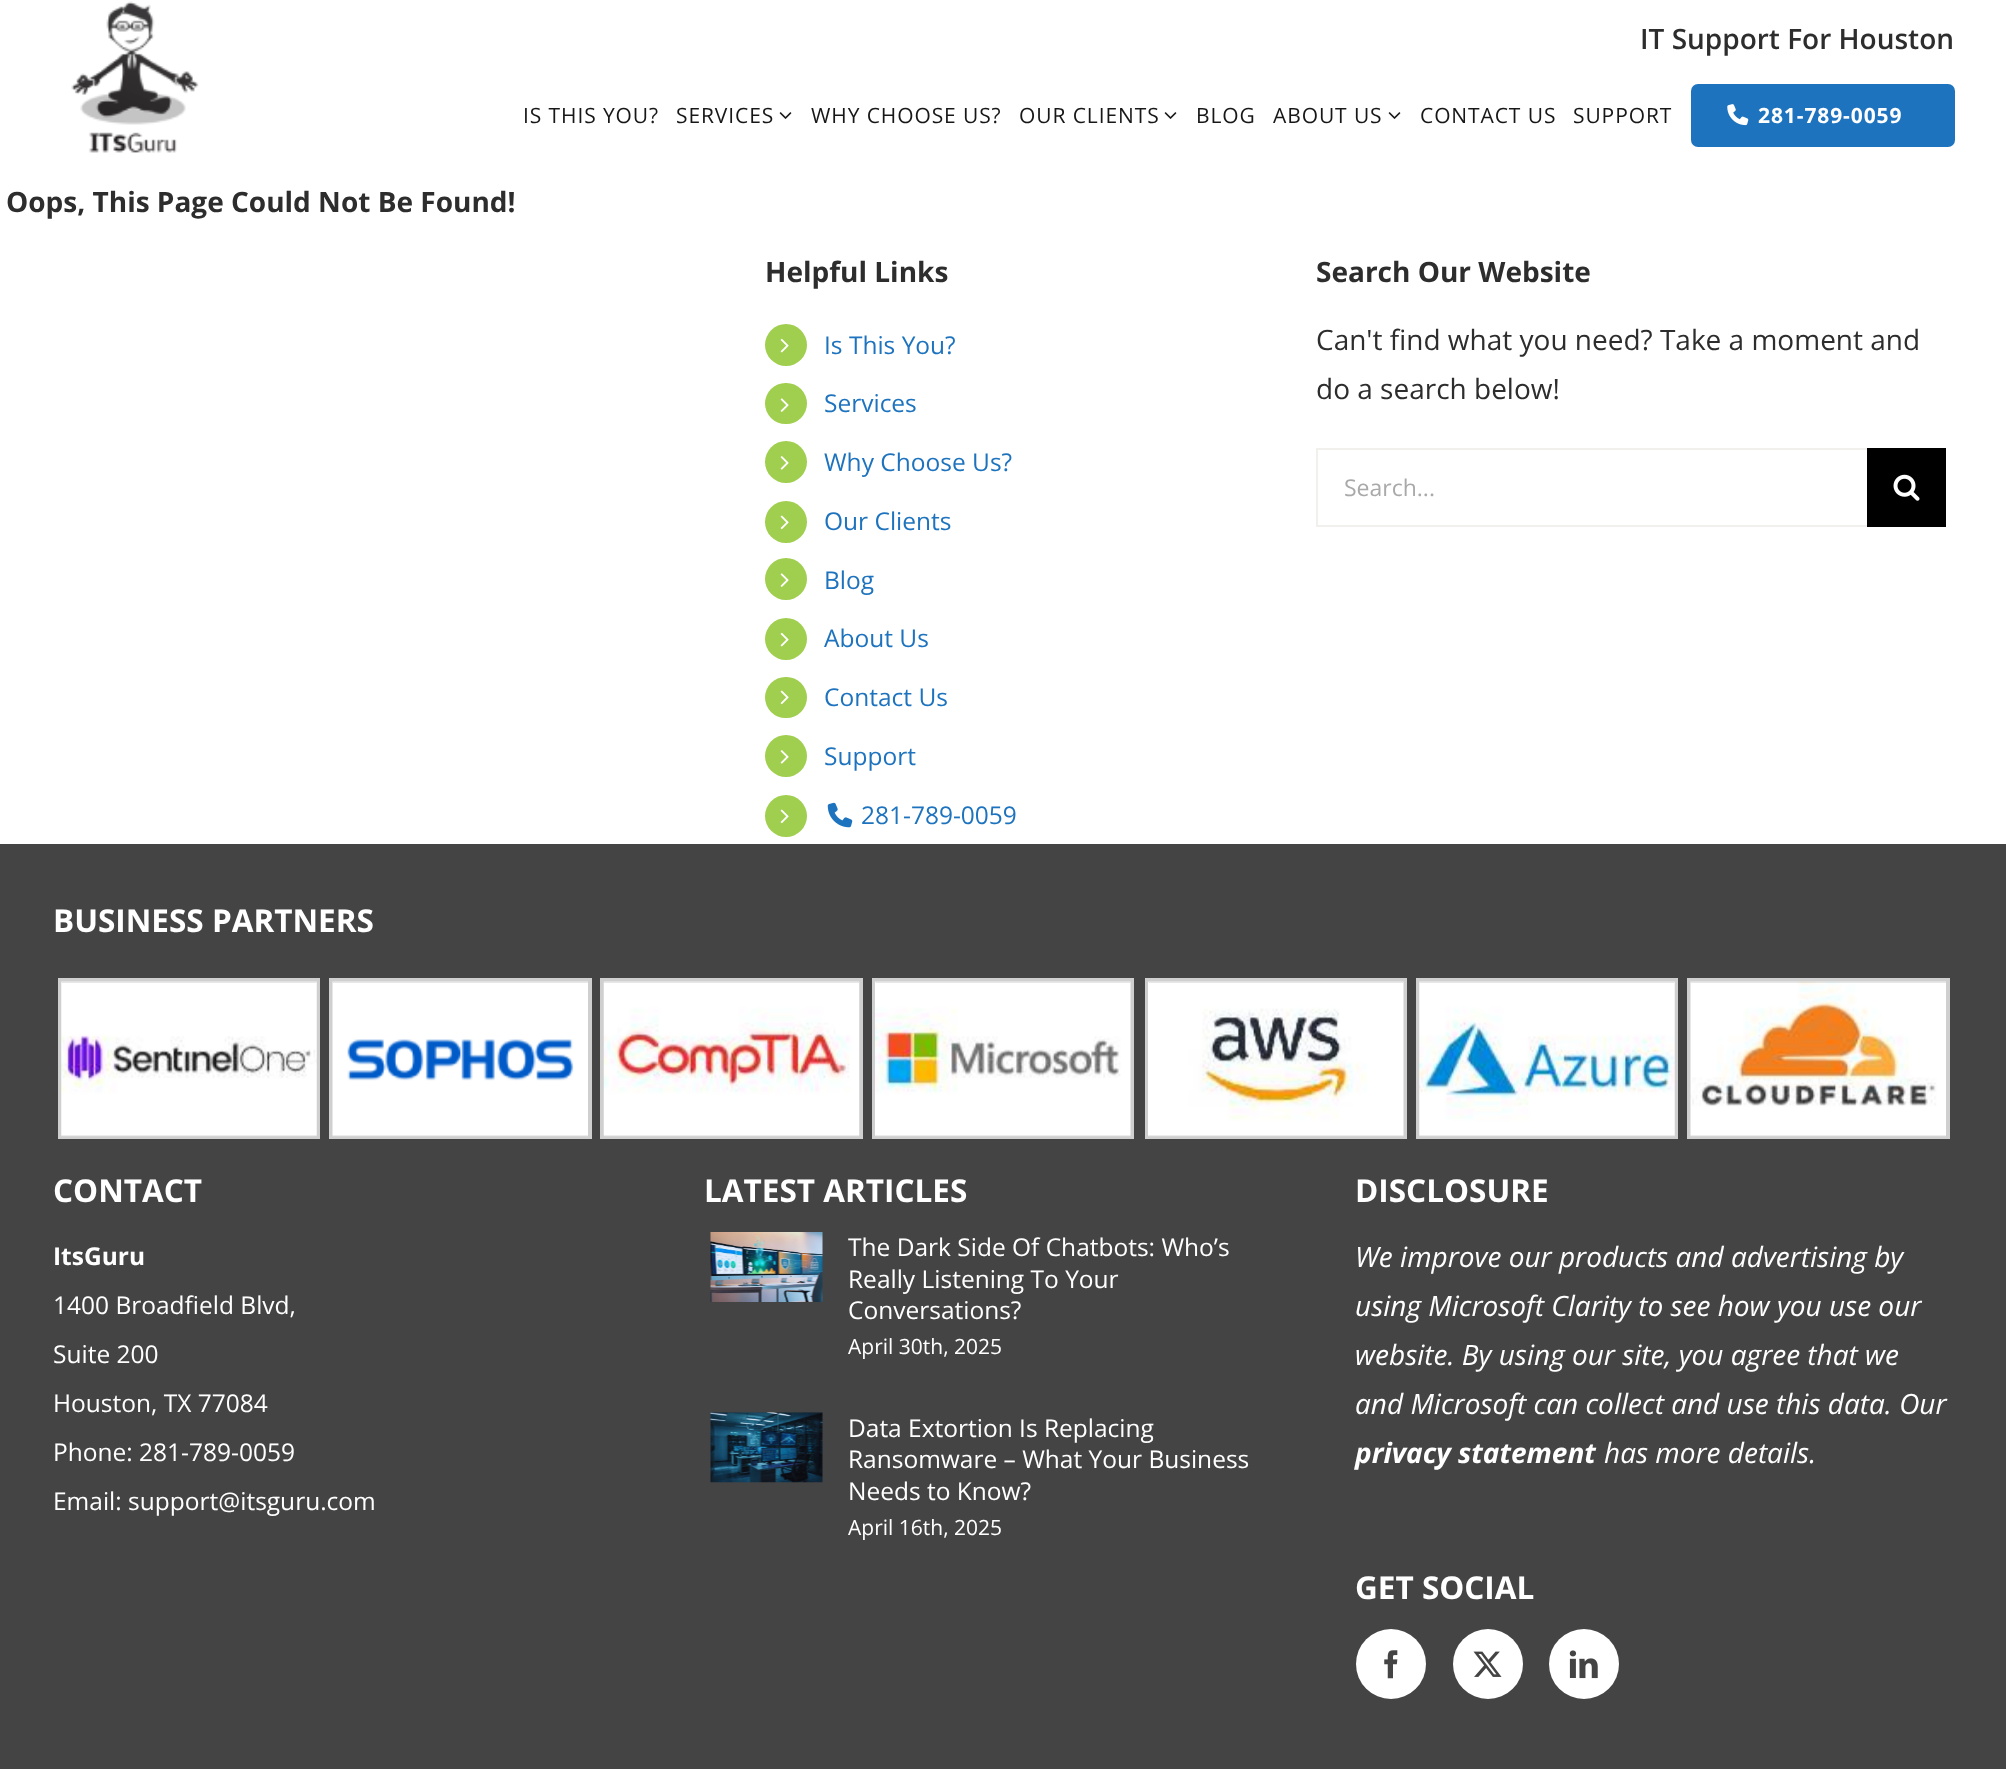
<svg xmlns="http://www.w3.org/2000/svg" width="2006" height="1769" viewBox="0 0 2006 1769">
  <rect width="100%" height="100%" fill="#fff"/>
  <image x="71" y="1" width="128" height="152" href="img/1.png"/>
  <image x="779" y="112" width="13" height="7" href="img/2.png"/>
  <image x="1164" y="112" width="13" height="7" href="img/2.png"/>
  <image x="1388" y="112" width="13" height="7" href="img/2.png"/>
  <rect x="1691" y="84" width="264" height="63" rx="7" fill="#1e73be"/>
  <image x="1727" y="104" width="22" height="22" href="img/3.png"/>
  <circle cx="786" cy="345" r="21" fill="#a0ce4e"/>
  <image x="780" y="338" width="9" height="15" href="img/4.png"/>
  <rect x="765" y="383" width="42" height="41" rx="20.5" fill="#a0ce4e"/>
  <image x="780" y="398" width="9" height="14" href="img/5.png"/>
  <circle cx="786" cy="462" r="21" fill="#a0ce4e"/>
  <image x="780" y="456" width="9" height="14" href="img/6.png"/>
  <circle cx="786" cy="522" r="21" fill="#a0ce4e"/>
  <image x="780" y="515" width="9" height="15" href="img/7.png"/>
  <circle cx="786" cy="579" r="21" fill="#a0ce4e"/>
  <image x="780" y="573" width="9" height="14" href="img/5.png"/>
  <circle cx="786" cy="639" r="21" fill="#a0ce4e"/>
  <image x="780" y="632" width="9" height="15" href="img/4.png"/>
  <rect x="765" y="677" width="42" height="41" rx="20.5" fill="#a0ce4e"/>
  <image x="780" y="690" width="9" height="15" href="img/7.png"/>
  <circle cx="786" cy="756" r="21" fill="#a0ce4e"/>
  <image x="780" y="750" width="9" height="14" href="img/6.png"/>
  <circle cx="786" cy="816" r="21" fill="#a0ce4e"/>
  <image x="780" y="809" width="9" height="15" href="img/7.png"/>
  <image x="827" y="802" width="26" height="26" href="img/8.png"/>
  <path d="M1316 448h551v2H1316z" fill="#f1f0ec"/>
  <path d="M1316 525h551v2H1316z" fill="#f1f0ec"/>
  <path d="M1316 448h2v79H1316z" fill="#f1f0ec"/>
  <path d="M1867 448h79v79H1867z" fill="#000"/>
  <image x="1893" y="474" width="27" height="27" href="img/9.png"/>
  <path d="M0 844h2006v925H0z" fill="#444"/>
  <path d="M60 980h258v157H60z" fill="none" stroke="#cfcfcf" stroke-width="4"/>
  <image x="61" y="981" width="256" height="156" href="img/10.png"/>
  <path d="M331 980h259v157H331z" fill="none" stroke="#cfcfcf" stroke-width="4"/>
  <image x="332" y="981" width="256" height="156" href="img/11.png"/>
  <path d="M602 980h259v157H602z" fill="none" stroke="#cfcfcf" stroke-width="4"/>
  <image x="603" y="981" width="257" height="156" href="img/12.png"/>
  <path d="M874 980h258v157H874z" fill="none" stroke="#cfcfcf" stroke-width="4"/>
  <image x="875" y="981" width="256" height="156" href="img/13.png"/>
  <path d="M1147 980h258v157H1147z" fill="none" stroke="#cfcfcf" stroke-width="4"/>
  <image x="1148" y="981" width="256" height="156" href="img/14.png"/>
  <path d="M1418 980h258v157H1418z" fill="none" stroke="#cfcfcf" stroke-width="4"/>
  <image x="1419" y="981" width="256" height="156" href="img/15.png"/>
  <path d="M1689 980h259v157H1689z" fill="none" stroke="#cfcfcf" stroke-width="4"/>
  <image x="1690" y="981" width="256" height="156" href="img/16.png"/>
  <image x="710" y="1232" width="113" height="70" href="img/17.png"/>
  <image x="710" y="1412" width="113" height="71" href="img/18.png"/>
  <circle cx="1391" cy="1664" r="35" fill="#fff"/>
  <image x="1384" y="1650" width="14" height="29" href="img/19.png"/>
  <circle cx="1488" cy="1664" r="35" fill="#fff"/>
  <image x="1473" y="1651" width="29" height="26" href="img/20.png"/>
  <circle cx="1584" cy="1664" r="35" fill="#fff"/>
  <image x="1569" y="1650" width="29" height="29" href="img/21.png"/>
  <g font-family="Open Sans" font-size="21" letter-spacing="0.9" fill="#171717">
    <text x="523" y="123">IS THIS YOU?</text>
    <text x="676" y="123">SERVICES</text>
    <text x="811" y="123">WHY CHOOSE US?</text>
    <text x="1019" y="123">OUR CLIENTS</text>
    <text x="1196" y="123">BLOG</text>
    <text x="1273" y="123">ABOUT US</text>
    <text x="1420" y="123">CONTACT US</text>
    <text x="1573" y="123">SUPPORT</text>
  </g>
  <text x="1640" y="49" font-family="Open Sans" font-size="28" font-weight="600" fill="#2d2d2d">IT Support For Houston</text>
  <text x="1758" y="123" font-family="Open Sans" font-size="21" font-weight="bold" letter-spacing="0.9" fill="#fff">281-789-0059</text>
  <g font-family="Open Sans" font-size="28" font-weight="bold" fill="#2d2d2d">
    <text x="6" y="212">Oops, This Page Could Not Be Found!</text>
    <text x="765" y="282">Helpful Links</text>
  </g>
  <g font-family="Open Sans" font-size="24.5" fill="#1e73be">
    <text x="824" y="354">Is This You?</text>
    <text x="824" y="412">Services</text>
    <text x="824" y="471">Why Choose Us?</text>
    <text x="824" y="530">Our Clients</text>
    <text x="824" y="589">Blog</text>
    <text x="824" y="647">About Us</text>
    <text x="824" y="706">Contact Us</text>
    <text x="824" y="765">Support</text>
    <text x="861" y="824">281-789-0059</text>
  </g>
  <text x="1316" y="282" font-family="Open Sans" font-size="28" font-weight="bold" fill="#2d2d2d">Search Our Website</text>
  <g font-family="Open Sans" font-size="28" fill="#2d2d2d">
    <text x="1316" y="350">Can't find what you need? Take a moment and</text>
    <text x="1316" y="399">do a search below!</text>
  </g>
  <text x="1344" y="496" font-family="Open Sans" font-size="23" fill="#aaa9a9">Search...</text>
  <g font-family="Open Sans" font-size="31.5" font-weight="bold" fill="#fff">
    <text x="53" y="932">BUSINESS PARTNERS</text>
    <text x="53" y="1202">CONTACT</text>
  </g>
  <text x="53" y="1265" font-family="Open Sans" font-size="24.5" font-weight="bold" fill="#fff">ItsGuru</text>
  <g font-family="Open Sans" font-size="24.5" fill="#fff">
    <text x="53" y="1314">1400 Broadfield Blvd,</text>
    <text x="53" y="1363">Suite 200</text>
    <text x="53" y="1412">Houston, TX 77084</text>
    <text x="53" y="1461">Phone: 281-789-0059</text>
    <text x="53" y="1510">Email: support@itsguru.com</text>
  </g>
  <text x="704" y="1202" font-family="Open Sans" font-size="31.5" font-weight="bold" fill="#fff">LATEST ARTICLES</text>
  <g font-family="Open Sans" font-size="24.5" fill="#fff">
    <text x="848" y="1256">The Dark Side Of Chatbots: Who’s</text>
    <text x="848" y="1288">Really Listening To Your</text>
    <text x="848" y="1319">Conversations?</text>
  </g>
  <text x="848" y="1354" font-family="Open Sans" font-size="21" fill="#fff">April 30th, 2025</text>
  <g font-family="Open Sans" font-size="24.5" fill="#fff">
    <text x="848" y="1437">Data Extortion Is Replacing</text>
    <text x="848" y="1468">Ransomware – What Your Business</text>
    <text x="848" y="1500">Needs to Know?</text>
  </g>
  <text x="848" y="1535" font-family="Open Sans" font-size="21" fill="#fff">April 16th, 2025</text>
  <text x="1355" y="1202" font-family="Open Sans" font-size="31.5" font-weight="bold" fill="#fff">DISCLOSURE</text>
  <g font-family="Open Sans" font-size="28" font-style="italic" fill="#fff">
    <text x="1355" y="1267">We improve our products and advertising by</text>
    <text x="1355" y="1316">using Microsoft Clarity to see how you use our</text>
    <text x="1355" y="1365">website. By using our site, you agree that we</text>
    <text x="1355" y="1414">and Microsoft can collect and use this data. Our</text>
  </g>
  <text x="1355" y="1463" font-family="Open Sans" font-size="28" font-weight="bold" font-style="italic" fill="#fff">privacy statement</text>
  <text x="1604" y="1463" font-family="Open Sans" font-size="28" font-style="italic" fill="#fff">has more details.</text>
  <text x="1355" y="1599" font-family="Open Sans" font-size="31.5" font-weight="bold" fill="#fff">GET SOCIAL</text>
</svg>
